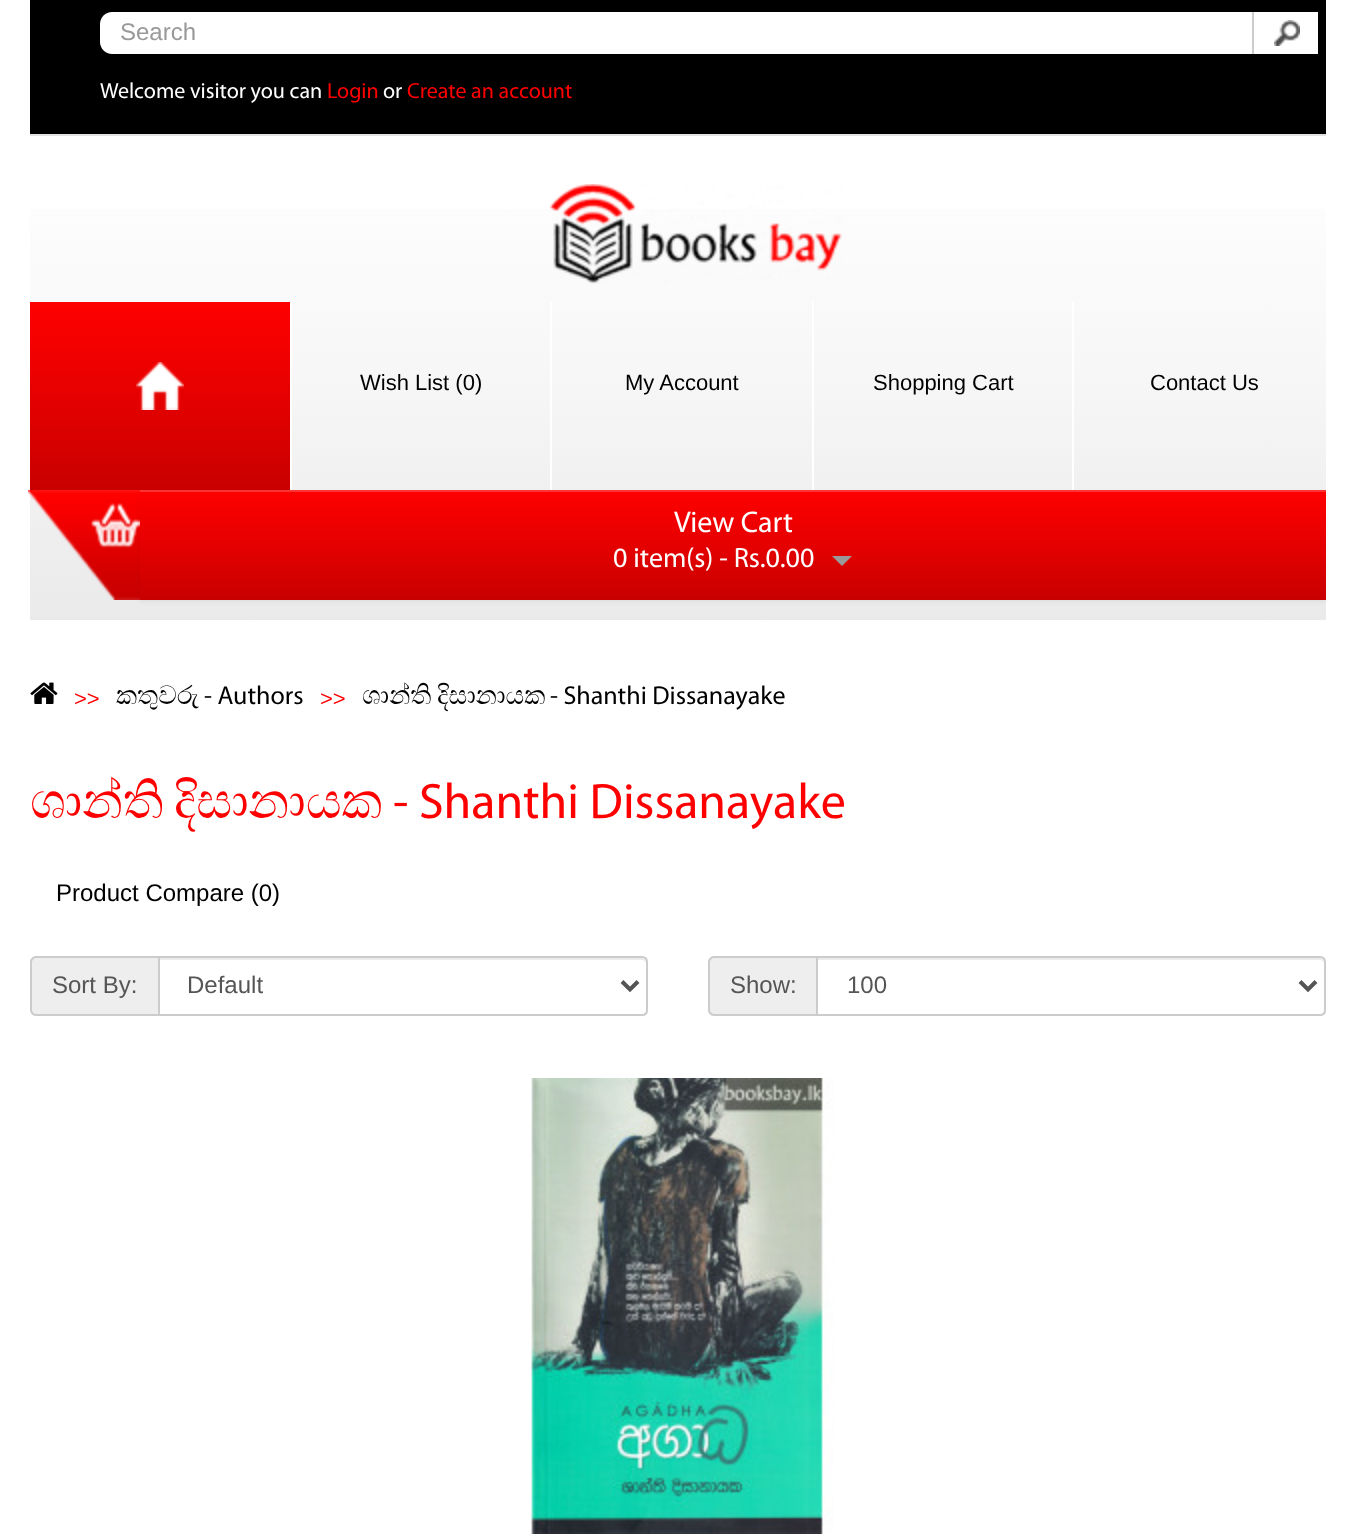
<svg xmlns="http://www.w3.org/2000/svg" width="1356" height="1540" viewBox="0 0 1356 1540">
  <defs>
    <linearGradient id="g1" gradientUnits="userSpaceOnUse" x1="678" y1="136" x2="678" y2="620"><stop offset="0" stop-color="#fff"/><stop offset="0.48" stop-color="#f7f7f7"/><stop offset="1" stop-color="#eaeaea"/></linearGradient>
    <linearGradient id="g2" gradientUnits="userSpaceOnUse" x1="160" y1="302" x2="160" y2="492"><stop offset="0" stop-color="#fe0000"/><stop offset="0.47" stop-color="#e70000"/><stop offset="1" stop-color="#c80000"/></linearGradient>
    <linearGradient id="g3" gradientUnits="userSpaceOnUse" x1="733" y1="490" x2="733" y2="600"><stop offset="0" stop-color="#fe0000"/><stop offset="0.47" stop-color="#e70000"/><stop offset="1" stop-color="#c80000"/></linearGradient>
  </defs>
  <rect width="100%" height="100%" fill="#fff"/>
  <path d="M30 0h1296v134H30z" fill="#000"/>
  <path d="M30 134h1296v2H30z" fill="#e2e2e2"/>
  <path d="M112 12H1254V54H112C105.5 54 100 48.5 100 42V24C100 17.5 105.5 12 112 12Z" fill="#fff"/>
  <path d="M1254 12h64v42H1254z" fill="#fff"/>
  <image x="1274" y="20" width="26" height="26" href="img/1.png"/>
  <path d="M1252 12h2v42H1252z" fill="#ccc"/>
  <path d="M30 209h1296v411H30z" fill="url(#g1)"/>
  <image x="549" y="184" width="293" height="100" href="img/2.png"/>
  <path d="M30 302h260v190H30z" fill="url(#g2)"/>
  <path d="M290 302h2v190H290z" fill="#fff"/>
  <image x="136" y="362" width="48" height="48" href="img/3.png"/>
  <path d="M550 302h2v190H550z" fill="#fff"/>
  <path d="M812 302h2v190H812z" fill="#fff"/>
  <path d="M1072 302h2v190H1072z" fill="#fff"/>
  <image x="28" y="490" width="112" height="110" href="img/4.png"/>
  <path d="M140 492h1186v110H140z" fill="#0000000d" filter="blur(2px)"/>
  <path d="M140 492h1186v108H140z" fill="url(#g3)"/>
  <path d="M140 490h1186v2H140z" fill="#fe3333"/>
  <path d="M832 556H852L842 566Z" fill="#999"/>
  <image x="30" y="682" width="28" height="22" href="img/5.png"/>
  <path d="M36 956H158V1016H36C32.5 1016 30 1013.5 30 1010V962C30 958.5 32.5 956 36 956Z" fill="#eee"/>
  <path d="M36 956H158V1016H36C33 1016 30 1013 30 1010V962C30 959 33 956 36 956ZM36 958H158V1014H36C34 1014 32 1012 32 1010V962C32 960 34 958 36 958Z" fill="#ccc" fill-rule="evenodd"/>
  <path d="M160 960H642C644 960 646 962 646 964C646 961 646 958 642 958H160Z" fill="#ececec"/>
  <path d="M159 957H642C645 957 647 959 647 962V1010C647 1013 645 1015 642 1015H159Z" fill="none" stroke="#ccc" stroke-width="2"/>
  <path d="M622 981.5L630 989.5L638 981.5" fill="none" stroke="#555" stroke-width="4"/>
  <path d="M714 956H816V1016H714C710.5 1016 708 1013.5 708 1010V962C708 958.5 710.5 956 714 956Z" fill="#eee"/>
  <path d="M714 956H816V1016H714C711 1016 708 1013 708 1010V962C708 959 711 956 714 956ZM714 958H816V1014H714C712 1014 710 1012 710 1010V962C710 960 712 958 714 958Z" fill="#ccc" fill-rule="evenodd"/>
  <path d="M818 960H1320C1322 960 1324 962 1324 964C1324 961 1324 958 1320 958H818Z" fill="#ececec"/>
  <path d="M817 957H1320C1323 957 1325 959 1325 962V1010C1325 1013 1323 1015 1320 1015H817Z" fill="none" stroke="#ccc" stroke-width="2"/>
  <path d="M1300 981.5L1308 989.5L1316 981.5" fill="none" stroke="#555" stroke-width="4"/>
  <image x="530" y="1078" width="304" height="456" href="img/6.png"/>
  <text x="120" y="40" font-family="Liberation Sans" font-size="24" fill="#999">Search</text>
  <text x="100" y="98" font-family="Myriad" font-size="22" fill="#fff">Welcome visitor you can</text>
  <text x="327" y="98" font-family="Myriad" font-size="22" fill="#fe0000">Login</text>
  <text x="383" y="98" font-family="Myriad" font-size="22" fill="#fff">or</text>
  <text x="407" y="98" font-family="Myriad" font-size="22" fill="#fe0000">Create an account</text>
  <g font-family="Liberation Sans" font-size="22" fill="#000">
    <text x="360" y="390">Wish List (0)</text>
    <text x="625" y="390">My Account</text>
    <text x="873" y="390">Shopping Cart</text>
    <text x="1150" y="390">Contact Us</text>
  </g>
  <text x="674" y="532" font-family="Myriad" font-size="30" fill="#fff">View Cart</text>
  <text x="613" y="567" font-family="Myriad" font-size="28" fill="#fff">0 item(s) - Rs.0.00</text>
  <text x="74" y="706" font-family="Liberation Sans" font-size="22" fill="#fe0000">&gt;&gt;</text>
  <text x="116" y="704" font-family="FreeSerif" font-size="26" fill="#000">කතුවරු</text>
  <text x="204" y="704" font-family="Myriad" font-size="26" fill="#000">- Authors</text>
  <text x="320" y="706" font-family="Liberation Sans" font-size="22" fill="#fe0000">&gt;&gt;</text>
  <g font-family="FreeSerif" font-size="26" fill="#000">
    <text x="362" y="704">ශාන්ති</text>
    <text x="437" y="704">දිසානායක</text>
  </g>
  <text x="550" y="704" font-family="Myriad" font-size="26" fill="#000">- Shanthi Dissanayake</text>
  <g font-family="FreeSerif" font-size="50" fill="#fe0000">
    <text x="30" y="818">ශාන්ති</text>
    <text x="174" y="818">දිසානායක</text>
  </g>
  <text x="393" y="818" font-family="Myriad" font-size="50" fill="#fe0000">- Shanthi Dissanayake</text>
  <text x="56" y="901" font-family="Liberation Sans" font-size="24" fill="#000">Product Compare (0)</text>
  <g font-family="Liberation Sans" font-size="24" fill="#555">
    <text x="52" y="993">Sort By:</text>
    <text x="187" y="993">Default</text>
    <text x="730" y="993">Show:</text>
    <text x="847" y="993">100</text>
  </g>
</svg>
